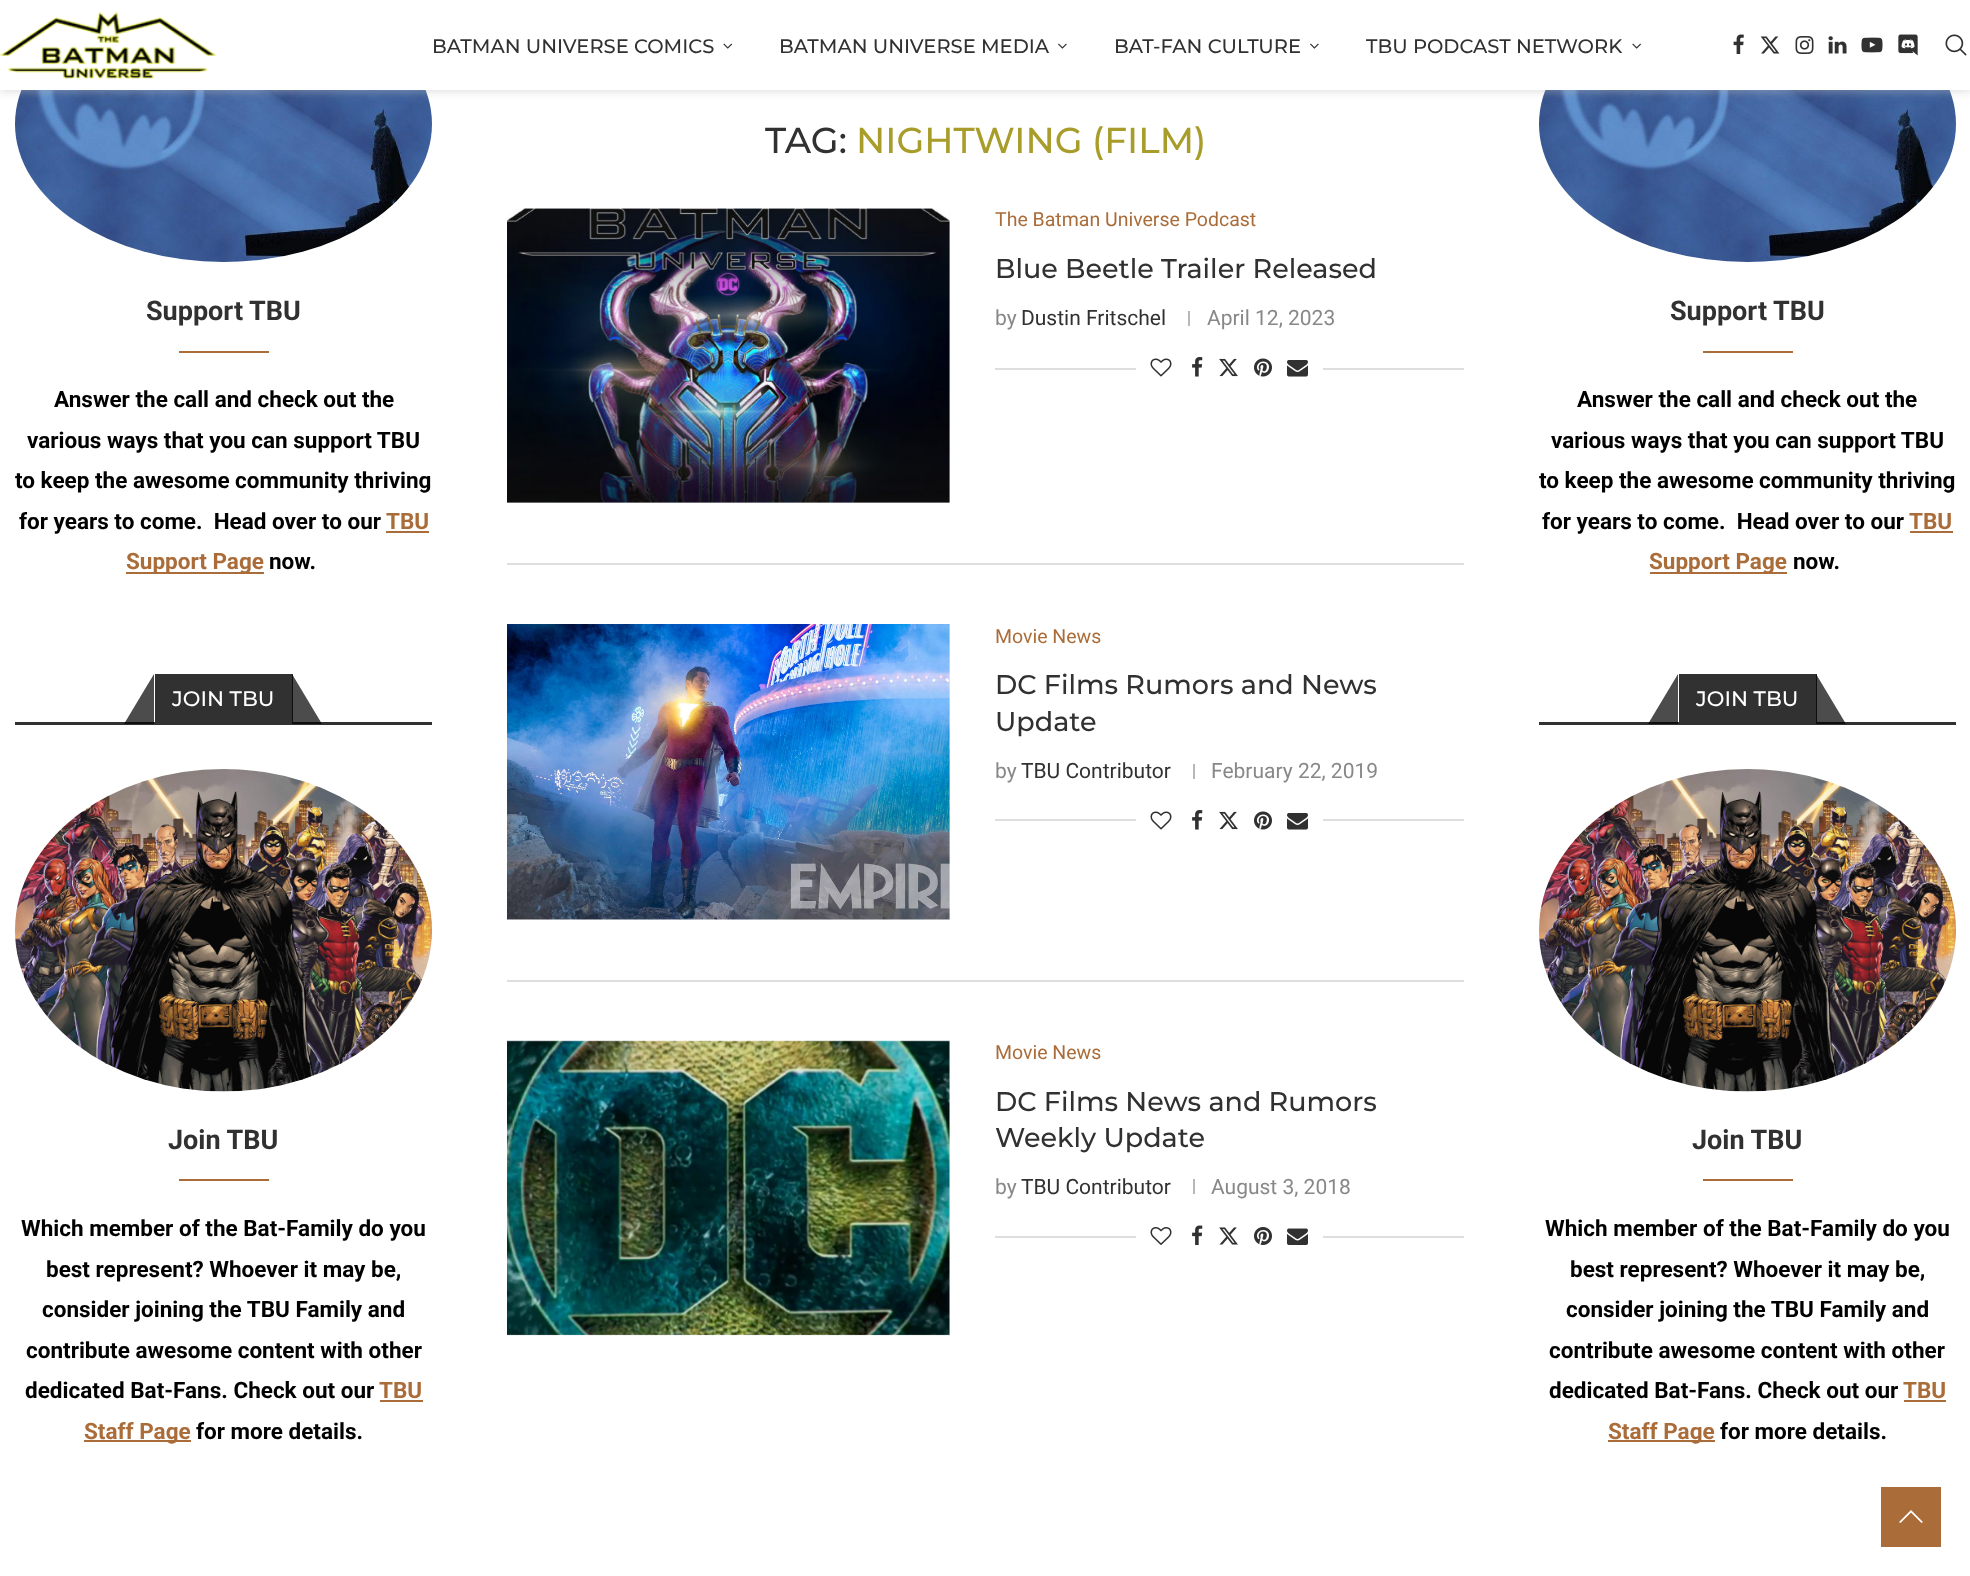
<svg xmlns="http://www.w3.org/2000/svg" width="1970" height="1576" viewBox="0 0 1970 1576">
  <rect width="100%" height="100%" fill="#fff"/>
  <image x="15" y="90" width="417" height="172" href="img/13.png"/>
  <image x="1539" y="90" width="417" height="172" href="img/13.png"/>
  <path d="M0 2h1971v90H0z" fill="#bebebe75" filter="blur(4px)"/>
  <path d="M0 0h1970v90H0z" fill="#fff"/>
  <image x="0" y="11" width="216" height="68" href="img/1.png"/>
  <image x="723" y="43" width="10" height="6" href="img/2.png"/>
  <image x="1058" y="43" width="9" height="6" href="img/3.png"/>
  <image x="1310" y="43" width="9" height="6" href="img/4.png"/>
  <image x="1632" y="43" width="9" height="6" href="img/5.png"/>
  <image x="1733" y="34" width="11" height="20" href="img/6.png"/>
  <image x="1760" y="36" width="20" height="18" href="img/7.png"/>
  <image x="1795" y="36" width="19" height="18" href="img/8.png"/>
  <image x="1828" y="36" width="19" height="18" href="img/9.png"/>
  <image x="1861" y="37" width="22" height="16" href="img/10.png"/>
  <image x="1898" y="34" width="20" height="22" href="img/11.png"/>
  <image x="1945" y="34" width="22" height="22" href="img/12.png"/>
  <path d="M179 351h90v2H179z" fill="#aa6c39"/>
  <path d="M386 531h43v2H386z" fill="#aa6c39"/>
  <path d="M126 572h138v2H126z" fill="#aa6c39"/>
  <path d="M15 722h417v3H15z" fill="#313131"/>
  <path d="M155 674h138v48H155z" fill="#313131"/>
  <path d="M154 724H124L154 674Z" fill="#000000b3"/>
  <path d="M322 724H292V674Z" fill="#000000b3"/>
  <image x="15" y="769" width="417" height="323" href="img/14.png"/>
  <path d="M179 1179h90v2H179z" fill="#aa6c39"/>
  <path d="M380 1400h43v2H380z" fill="#aa6c39"/>
  <path d="M84 1440h107v2H84z" fill="#aa6c39"/>
  <path d="M507 563h957v2H507z" fill="#dedede"/>
  <path d="M507 209h443v294H507z" fill="#f5f5f5"/>
  <image x="507" y="208" width="443" height="295" href="img/15.png"/>
  <path d="M1188 311h2v15H1188z" fill="#b8b8b8"/>
  <path d="M995 368h469v2H995z" fill="#dedede"/>
  <path d="M1136 368h187v2H1136z" fill="#fff"/>
  <image x="1150" y="358" width="22" height="19" href="img/16.png"/>
  <image x="1192" y="357" width="11" height="20" href="img/17.png"/>
  <image x="1219" y="358" width="19" height="19" href="img/18.png"/>
  <image x="1254" y="358" width="18" height="19" href="img/19.png"/>
  <image x="1287" y="360" width="21" height="17" href="img/20.png"/>
  <path d="M507 980h957v2H507z" fill="#dedede"/>
  <path d="M507 624h443v296H507z" fill="#f5f5f5"/>
  <image x="507" y="624" width="443" height="296" href="img/21.png"/>
  <path d="M1193 764h2v15H1193z" fill="#b8b8b8"/>
  <path d="M995 819h469v2H995z" fill="#dedede"/>
  <path d="M1136 819h187v2H1136z" fill="#fff"/>
  <image x="1150" y="811" width="22" height="19" href="img/16.png"/>
  <image x="1192" y="810" width="11" height="20" href="img/17.png"/>
  <image x="1219" y="811" width="19" height="19" href="img/18.png"/>
  <image x="1254" y="811" width="18" height="19" href="img/19.png"/>
  <image x="1287" y="813" width="21" height="17" href="img/20.png"/>
  <path d="M507 1041h443v294H507z" fill="#f5f5f5"/>
  <image x="507" y="1040" width="443" height="296" href="img/22.png"/>
  <path d="M1193 1179h2v15H1193z" fill="#b8b8b8"/>
  <path d="M995 1236h469v2H995z" fill="#dedede"/>
  <path d="M1136 1236h187v2H1136z" fill="#fff"/>
  <image x="1150" y="1227" width="22" height="18" href="img/23.png"/>
  <image x="1192" y="1225" width="11" height="20" href="img/24.png"/>
  <image x="1219" y="1227" width="19" height="18" href="img/25.png"/>
  <image x="1254" y="1227" width="18" height="18" href="img/26.png"/>
  <image x="1287" y="1228" width="21" height="17" href="img/27.png"/>
  <path d="M1703 351h90v2H1703z" fill="#aa6c39"/>
  <path d="M1910 531h43v2H1910z" fill="#aa6c39"/>
  <path d="M1650 572h137v2H1650z" fill="#aa6c39"/>
  <path d="M1539 722h417v3H1539z" fill="#313131"/>
  <path d="M1679 674h138v48H1679z" fill="#313131"/>
  <path d="M1678 724H1648L1678 674Z" fill="#000000b3"/>
  <path d="M1846 724H1816V674Z" fill="#000000b3"/>
  <image x="1539" y="769" width="417" height="323" href="img/14.png"/>
  <path d="M1703 1179h90v2H1703z" fill="#aa6c39"/>
  <path d="M1904 1400h42v2H1904z" fill="#aa6c39"/>
  <path d="M1608 1440h107v2H1608z" fill="#aa6c39"/>
  <path d="M1881 1487h60v60H1881z" fill="#aa6c39"/>
  <path d="M1911 1510L1899 1522L1900.5 1523L1911 1512.5L1921.5 1523L1923 1522Z" fill="#fff"/>
  <g font-family="Montserrat" font-size="19.5" font-weight="500" fill="#313131">
    <text x="432" y="53">BATMAN UNIVERSE COMICS</text>
    <text x="779" y="53">BATMAN UNIVERSE MEDIA</text>
    <text x="1114" y="53">BAT-FAN CULTURE</text>
    <text x="1366" y="53">TBU PODCAST NETWORK</text>
  </g>
  <text x="146" y="320" font-family="Roboto" font-size="27" font-weight="bold" fill="#313131">Support TBU</text>
  <g font-family="Roboto" font-size="22.5" font-weight="bold" fill="#000">
    <text x="54" y="407">Answer the call and check out the</text>
    <text x="27" y="448">various ways that you can support TBU</text>
    <text x="15" y="488">to keep the awesome community thriving</text>
    <text x="19" y="529" xml:space="preserve">for years to come.  Head over to our</text>
  </g>
  <g font-family="Roboto" font-size="22.5" font-weight="bold" fill="#aa6c39">
    <text x="386" y="529">TBU</text>
    <text x="126" y="569">Support Page</text>
  </g>
  <text x="269" y="569" font-family="Roboto" font-size="22.5" font-weight="bold" fill="#000">now.</text>
  <text x="172" y="706" font-family="Montserrat" font-size="21" font-weight="500" fill="#fff">JOIN TBU</text>
  <text x="168" y="1149" font-family="Roboto" font-size="27" font-weight="bold" fill="#313131">Join TBU</text>
  <g font-family="Roboto" font-size="22.5" font-weight="bold" fill="#000">
    <text x="21" y="1236">Which member of the Bat-Family do you</text>
    <text x="46" y="1277">best represent? Whoever it may be,</text>
    <text x="42" y="1317">consider joining the TBU Family and</text>
    <text x="26" y="1358">contribute awesome content with other</text>
    <text x="25" y="1398">dedicated Bat-Fans. Check out our</text>
  </g>
  <g font-family="Roboto" font-size="22.5" font-weight="bold" fill="#aa6c39">
    <text x="379" y="1398">TBU</text>
    <text x="84" y="1439">Staff Page</text>
  </g>
  <text x="196" y="1439" font-family="Roboto" font-size="22.5" font-weight="bold" fill="#000">for more details.</text>
  <text x="765" y="153" font-family="Montserrat" font-size="36" font-weight="500" fill="#313131">TAG:</text>
  <text x="856" y="153" font-family="Montserrat" font-size="36" font-weight="500" fill="#a89d2a">NIGHTWING (FILM)</text>
  <text x="995" y="226" font-family="Roboto" font-size="19.5" fill="#aa6c39">The Batman Universe Podcast</text>
  <text x="995" y="278" font-family="Montserrat" font-size="27" font-weight="500" fill="#313131">Blue Beetle Trailer Released</text>
  <text x="995" y="325" font-family="Roboto" font-size="21" fill="#888">by</text>
  <text x="1021" y="325" font-family="Roboto" font-size="21" fill="#313131">Dustin Fritschel</text>
  <text x="1207" y="325" font-family="Roboto" font-size="21" fill="#888">April 12, 2023</text>
  <text x="995" y="643" font-family="Roboto" font-size="19.5" fill="#aa6c39">Movie News</text>
  <g font-family="Montserrat" font-size="27" font-weight="500" fill="#313131">
    <text x="995" y="694">DC Films Rumors and News</text>
    <text x="995" y="731">Update</text>
  </g>
  <text x="995" y="778" font-family="Roboto" font-size="21" fill="#888">by</text>
  <text x="1021" y="778" font-family="Roboto" font-size="21" fill="#313131">TBU Contributor</text>
  <text x="1211" y="778" font-family="Roboto" font-size="21" fill="#888">February 22, 2019</text>
  <text x="995" y="1059" font-family="Roboto" font-size="19.5" fill="#aa6c39">Movie News</text>
  <g font-family="Montserrat" font-size="27" font-weight="500" fill="#313131">
    <text x="995" y="1111">DC Films News and Rumors</text>
    <text x="995" y="1147">Weekly Update</text>
  </g>
  <text x="995" y="1194" font-family="Roboto" font-size="21" fill="#888">by</text>
  <text x="1021" y="1194" font-family="Roboto" font-size="21" fill="#313131">TBU Contributor</text>
  <text x="1211" y="1194" font-family="Roboto" font-size="21" fill="#888">August 3, 2018</text>
  <text x="1670" y="320" font-family="Roboto" font-size="27" font-weight="bold" fill="#313131">Support TBU</text>
  <g font-family="Roboto" font-size="22.5" font-weight="bold" fill="#000">
    <text x="1577" y="407">Answer the call and check out the</text>
    <text x="1551" y="448">various ways that you can support TBU</text>
    <text x="1539" y="488">to keep the awesome community thriving</text>
    <text x="1542" y="529" xml:space="preserve">for years to come.  Head over to our</text>
  </g>
  <g font-family="Roboto" font-size="22.5" font-weight="bold" fill="#aa6c39">
    <text x="1909" y="529">TBU</text>
    <text x="1649" y="569">Support Page</text>
  </g>
  <text x="1793" y="569" font-family="Roboto" font-size="22.5" font-weight="bold" fill="#000">now.</text>
  <text x="1696" y="706" font-family="Montserrat" font-size="21" font-weight="500" fill="#fff">JOIN TBU</text>
  <text x="1692" y="1149" font-family="Roboto" font-size="27" font-weight="bold" fill="#313131">Join TBU</text>
  <g font-family="Roboto" font-size="22.5" font-weight="bold" fill="#000">
    <text x="1545" y="1236">Which member of the Bat-Family do you</text>
    <text x="1570" y="1277">best represent? Whoever it may be,</text>
    <text x="1566" y="1317">consider joining the TBU Family and</text>
    <text x="1549" y="1358">contribute awesome content with other</text>
    <text x="1549" y="1398">dedicated Bat-Fans. Check out our</text>
  </g>
  <g font-family="Roboto" font-size="22.5" font-weight="bold" fill="#aa6c39">
    <text x="1903" y="1398">TBU</text>
    <text x="1608" y="1439">Staff Page</text>
  </g>
  <text x="1720" y="1439" font-family="Roboto" font-size="22.5" font-weight="bold" fill="#000">for more details.</text>
</svg>
